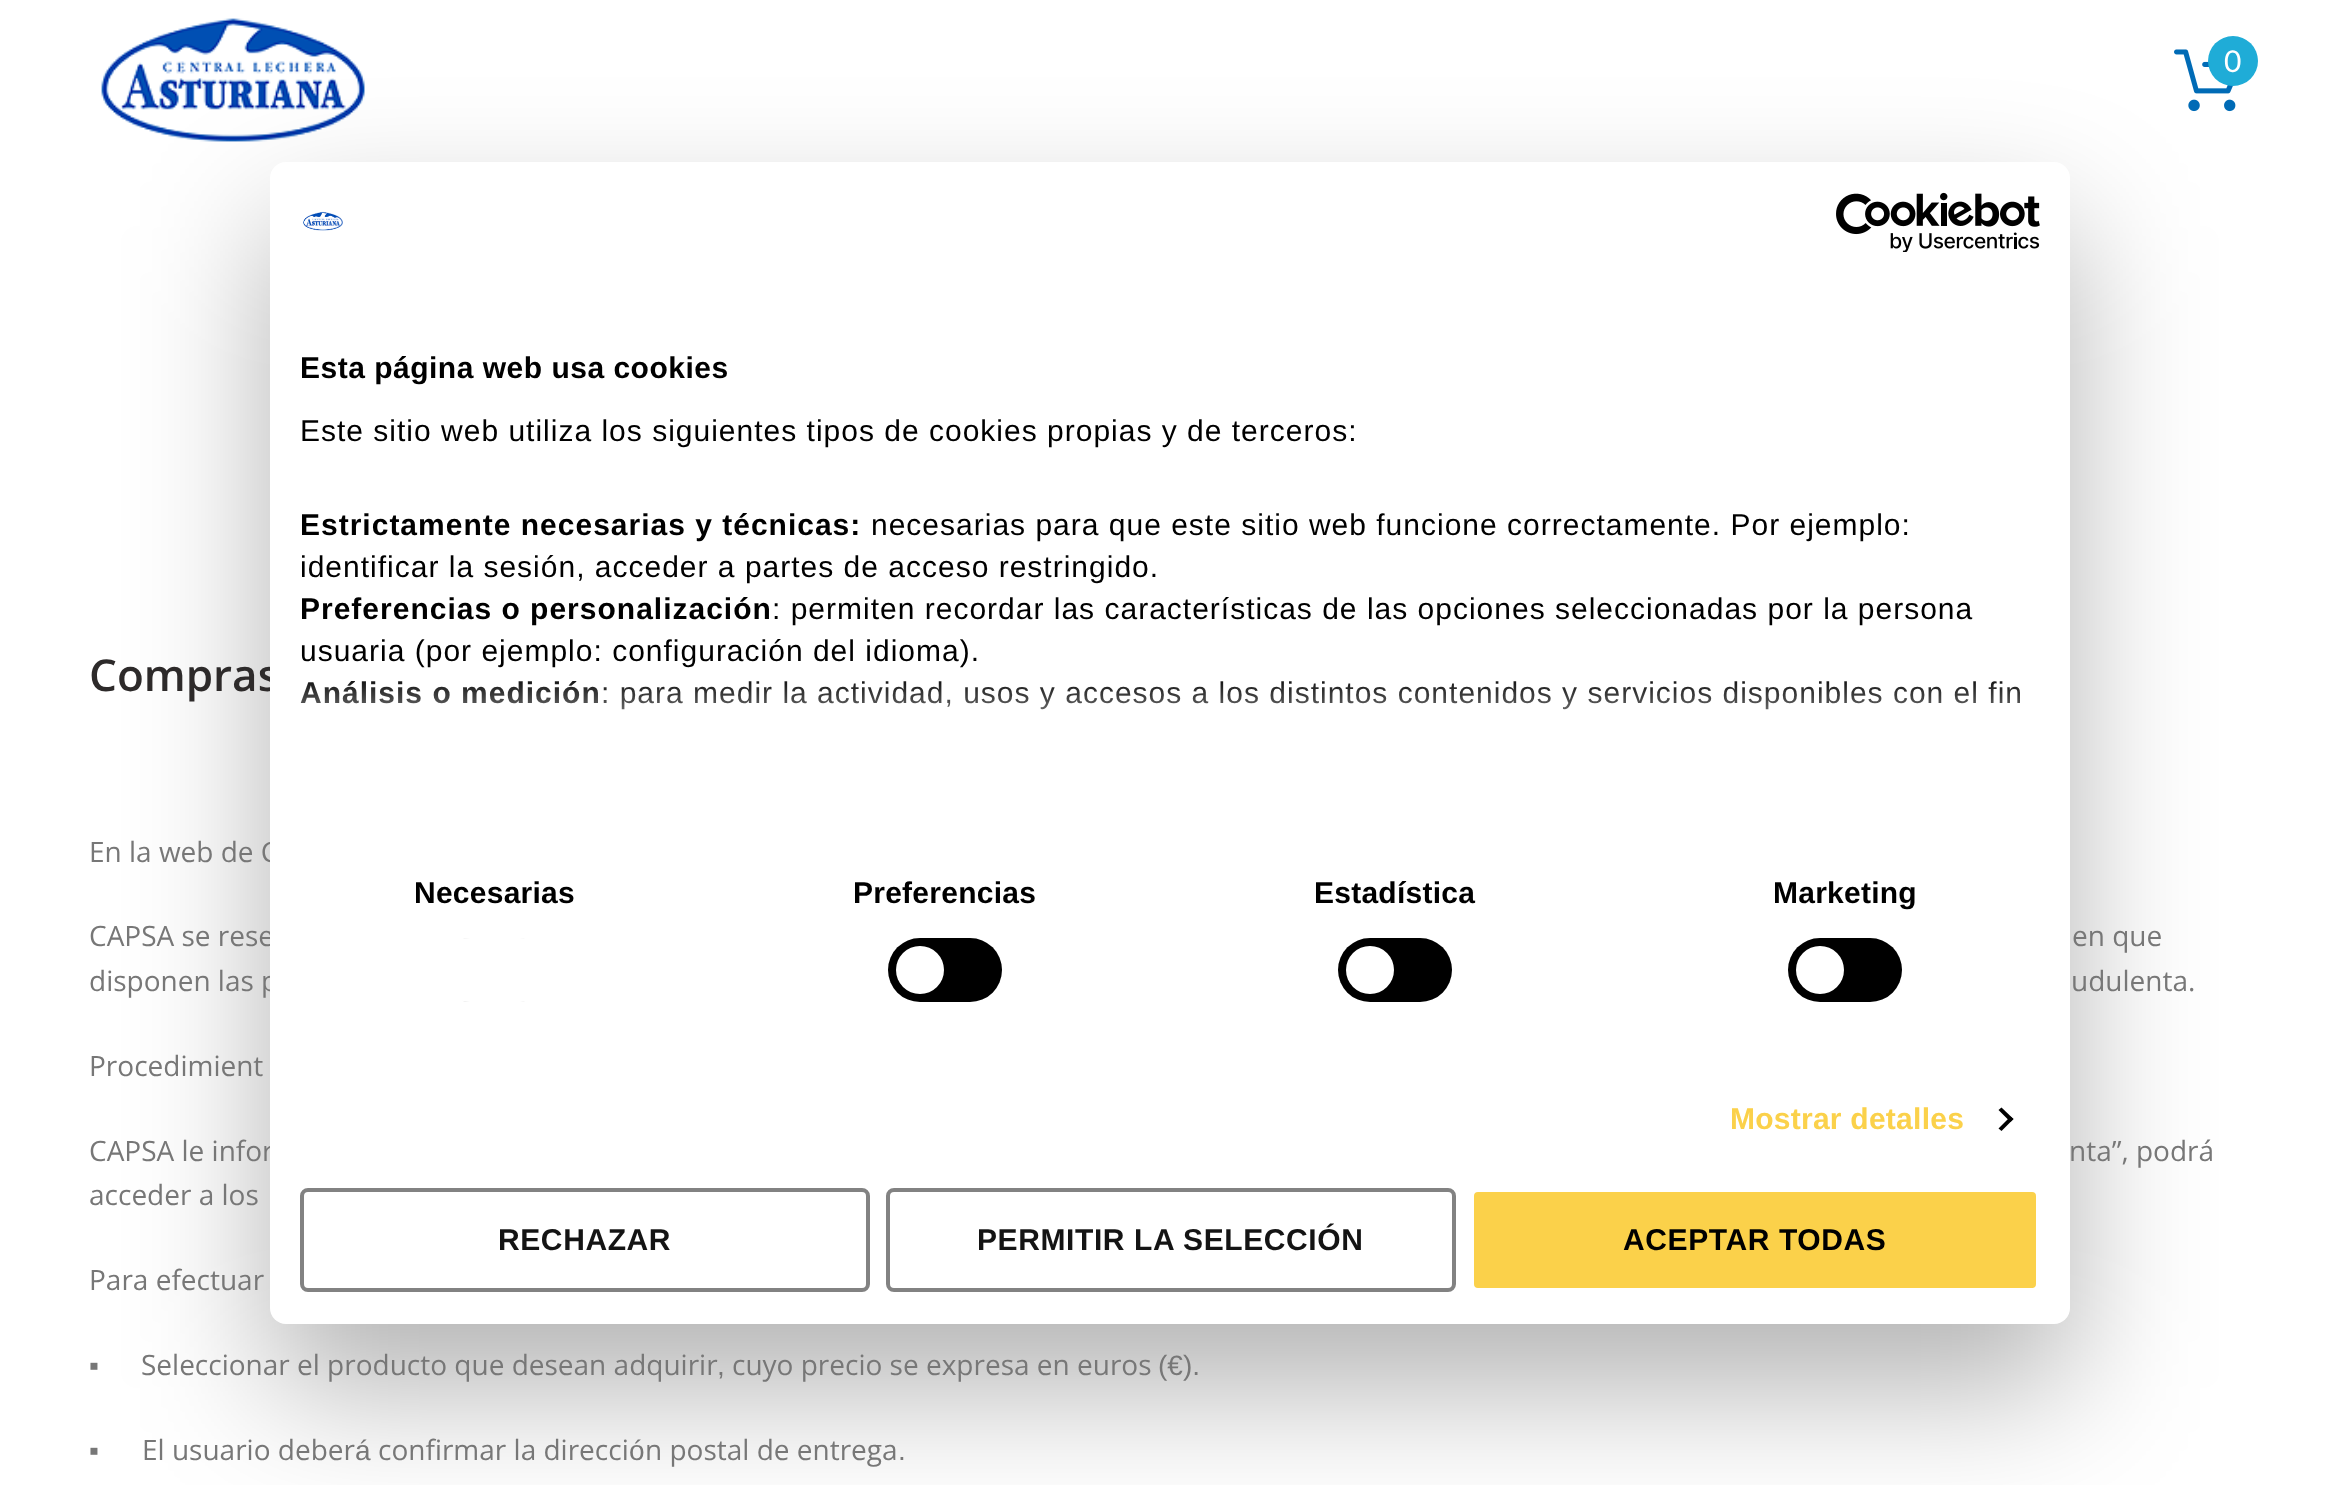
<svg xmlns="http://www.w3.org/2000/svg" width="2340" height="1485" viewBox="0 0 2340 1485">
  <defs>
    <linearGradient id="g1" gradientUnits="userSpaceOnUse" x1="1157" y1="823" x2="1157" y2="673"><stop offset="0" stop-color="#fff"/><stop offset="0.5" stop-color="#fff" stop-opacity="0.8"/><stop offset="1" stop-color="#fff" stop-opacity="0"/></linearGradient>
  </defs>
  <rect width="100%" height="100%" fill="#fff"/>
  <image x="101" y="18" width="264" height="124" href="img/1.png"/>
  <image x="2174" y="49" width="62" height="63" href="img/2.png"/>
  <circle cx="2233" cy="61" r="25" fill="#1facd7"/>
  <rect x="270" y="226" width="1800" height="1162" rx="16" fill="#0000004d" filter="blur(68px)"/>
  <text x="2224" y="72" font-family="Lato" font-size="30" fill="#fff">0</text>
  <text x="89" y="691" font-family="Open Sans" font-size="44" font-weight="600" fill="#2d2a2a">Compras</text>
  <g font-family="Open Sans" font-size="28" fill="#777">
    <text x="89" y="862">En la web de C</text>
    <text x="89" y="946">CAPSA se rese</text>
    <text x="2072" y="946">en que</text>
    <text x="89" y="991">disponen las p</text>
    <text x="2071" y="991">udulenta.</text>
    <text x="89" y="1076">Procedimient</text>
    <text x="89" y="1161">CAPSA le infor</text>
    <text x="2069" y="1161">nta”, podrá</text>
    <text x="89" y="1205">acceder a los</text>
    <text x="89" y="1290">Para efectuar</text>
  </g>
  <text x="89" y="1375" font-family="Liberation Sans" font-size="28" fill="#777">▪</text>
  <g font-family="Open Sans" font-size="28" fill="#777">
    <text x="141" y="1375">Seleccionar el producto que desean adquirir</text>
    <text x="732" y="1375">cuyo precio se expresa en euros</text>
  </g>
  <g font-family="Liberation Sans" font-size="28" fill="#777">
    <text x="1158" y="1375">(€).</text>
    <text x="717" y="1375">,</text>
    <text x="89" y="1460">▪</text>
  </g>
  <text x="142" y="1460" font-family="Open Sans" font-size="28" fill="#777">El usuario deber</text>
  <text x="355" y="1460" font-family="Liberation Sans" font-size="28" fill="#777">á</text>
  <text x="378" y="1460" font-family="Open Sans" font-size="28" fill="#777">confirmar la direcci</text>
  <text x="629" y="1460" font-family="Liberation Sans" font-size="28" fill="#777">ó</text>
  <text x="645" y="1460" font-family="Open Sans" font-size="28" fill="#777">n postal de entrega</text>
  <text x="898" y="1460" font-family="Liberation Sans" font-size="28" fill="#777">.</text>
  <rect x="270" y="162" width="1800" height="1162" rx="16" fill="#fff"/>
  <image x="303" y="211" width="40" height="20" href="img/3.png"/>
  <image x="1836" y="192" width="204" height="60" href="img/4.png"/>
  <text x="300" y="378" font-family="Liberation Sans" font-size="30" font-weight="bold" letter-spacing="0.5" fill="#000">Esta página web usa cookies</text>
  <text x="300" y="441" font-family="Liberation Sans" font-size="30" letter-spacing="1" fill="#000">Este sitio web utiliza los siguientes tipos de cookies propias y de terceros:</text>
  <text x="300" y="535" font-family="Liberation Sans" font-size="30" font-weight="bold" letter-spacing="1" fill="#000">Estrictamente necesarias y técnicas:</text>
  <g font-family="Liberation Sans" font-size="30" letter-spacing="1" fill="#000">
    <text x="871" y="535">necesarias para que este sitio web funcione correctamente. Por ejemplo:</text>
    <text x="300" y="577">identificar la sesión, acceder a partes de acceso restringido.</text>
  </g>
  <text x="300" y="619" font-family="Liberation Sans" font-size="30" font-weight="bold" letter-spacing="1" fill="#000">Preferencias o personalización</text>
  <g font-family="Liberation Sans" font-size="30" letter-spacing="1" fill="#000">
    <text x="772" y="619">: permiten recordar las características de las opciones seleccionadas por la persona</text>
    <text x="300" y="661">usuaria (por ejemplo: configuración del idioma).</text>
  </g>
  <text x="300" y="703" font-family="Liberation Sans" font-size="30" font-weight="bold" letter-spacing="1" fill="#000">Análisis o medición</text>
  <text x="601" y="703" font-family="Liberation Sans" font-size="30" letter-spacing="1" fill="#000">: para medir la actividad, usos y accesos a los distintos contenidos y servicios disponibles con el fin</text>
  <path d="M300 681h1720v29H300z" fill="url(#g1)"/>
  <text x="414" y="903" font-family="Liberation Sans" font-size="30" font-weight="bold" letter-spacing="0.25" fill="#000">Necesarias</text>
  <rect x="462" y="938" width="64" height="64" rx="4" fill="#e6e6e6"/>
  <rect x="438" y="938" width="114" height="64" rx="32" fill="#fff"/>
  <text x="853" y="903" font-family="Liberation Sans" font-size="30" font-weight="bold" letter-spacing="0.25" fill="#000">Preferencias</text>
  <rect x="888" y="938" width="114" height="64" rx="32" fill="#000"/>
  <circle cx="920" cy="970" r="24" fill="#fff"/>
  <text x="1314" y="903" font-family="Liberation Sans" font-size="30" font-weight="bold" letter-spacing="0.25" fill="#000">Estadística</text>
  <rect x="1338" y="938" width="114" height="64" rx="32" fill="#000"/>
  <circle cx="1370" cy="970" r="24" fill="#fff"/>
  <text x="1773" y="903" font-family="Liberation Sans" font-size="30" font-weight="bold" letter-spacing="0.25" fill="#000">Marketing</text>
  <rect x="1788" y="938" width="114" height="64" rx="32" fill="#000"/>
  <circle cx="1820" cy="970" r="24" fill="#fff"/>
  <text x="1730" y="1129" font-family="Liberation Sans" font-size="30" font-weight="bold" letter-spacing="0.25" fill="#fbd14a">Mostrar detalles</text>
  <path d="M2001.5 1107.5L2013.5 1119L2010.5 1122L1998.5 1110Z" fill="#000"/>
  <path d="M2010.5 1116.5L2013.5 1119L2001.5 1131L1998.5 1128.5Z" fill="#000"/>
  <rect x="302" y="1190" width="566" height="100" rx="6" fill="none" stroke="#828282" stroke-width="4"/>
  <text x="498" y="1250" font-family="Liberation Sans" font-size="30" font-weight="bold" letter-spacing="0.6" fill="#141414">RECHAZAR</text>
  <rect x="888" y="1190" width="566" height="100" rx="6" fill="none" stroke="#828282" stroke-width="4"/>
  <text x="977" y="1250" font-family="Liberation Sans" font-size="30" font-weight="bold" letter-spacing="0.6" fill="#141414">PERMITIR LA SELECCIÓN</text>
  <rect x="1472" y="1190" width="566" height="100" rx="6" fill="#fbd14a" stroke="#fff" stroke-width="4"/>
  <text x="1623" y="1250" font-family="Liberation Sans" font-size="30" font-weight="bold" letter-spacing="0.6" fill="#000">ACEPTAR TODAS</text>
</svg>
